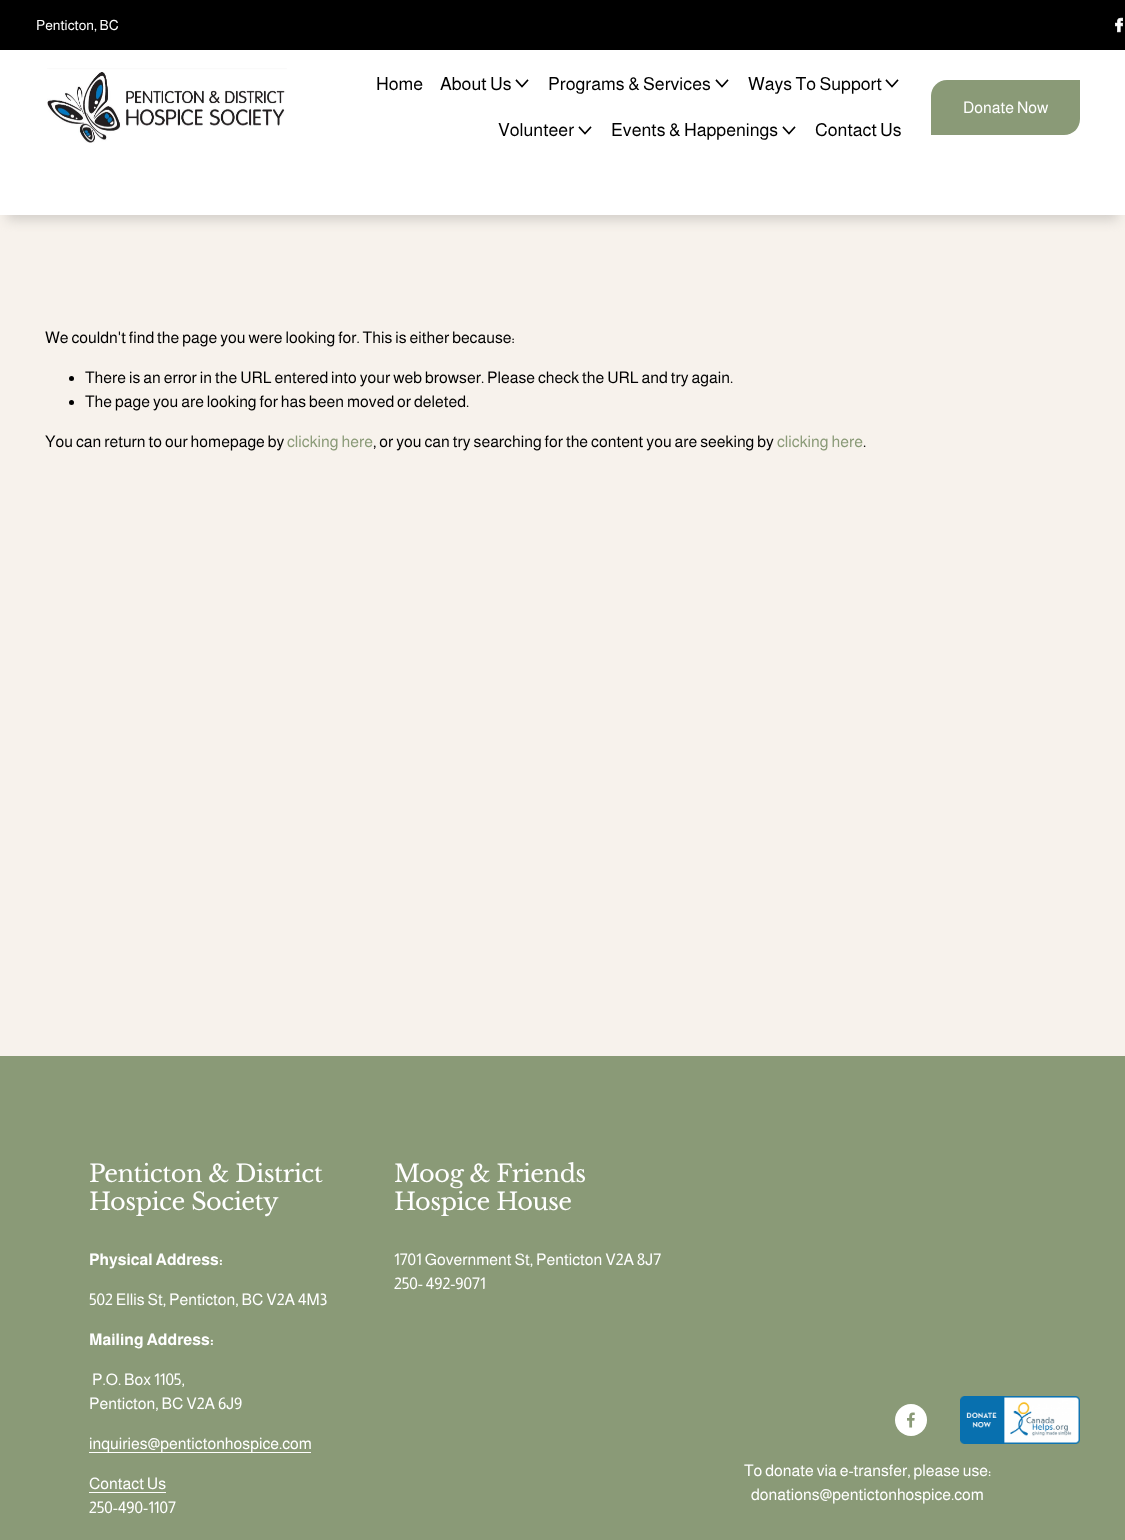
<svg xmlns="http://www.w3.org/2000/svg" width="1125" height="1540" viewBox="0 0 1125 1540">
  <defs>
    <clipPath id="clip1"><path d="M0 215h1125v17H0z"/></clipPath>
  </defs>
  <rect width="100%" height="100%" fill="#f7f2ec"/>
  <path d="M0 50h1125v165H0z" fill="#fff"/>
  <g clip-path="url(#clip1)">
    <path d="M7 19h1111v201H7z" fill="#d2cec9" filter="blur(6px)"/>
  </g>
  <path d="M0 0h1125v50H0z" fill="#000"/>
  <image x="1115" y="17" width="8" height="16" href="img/1.png"/>
  <image x="47" y="68" width="240" height="75" href="img/2.png"/>
  <path d="M527.5 80.5L522 86.5L516.5 80.5" fill="none" stroke="#000" stroke-width="1.6" stroke-linecap="square"/>
  <path d="M727.5 80.5L722 86.5L716.5 80.5" fill="none" stroke="#000" stroke-width="1.6" stroke-linecap="square"/>
  <path d="M897.5 80.5L892 86.5L886.5 80.5" fill="none" stroke="#000" stroke-width="1.6" stroke-linecap="square"/>
  <path d="M590.5 127.5L585 133.5L579.5 127.5" fill="none" stroke="#000" stroke-width="1.6" stroke-linecap="square"/>
  <path d="M794.5 127.5L789 133.5L783.5 127.5" fill="none" stroke="#000" stroke-width="1.6" stroke-linecap="square"/>
  <path d="M947 80H1080V119C1080 128 1073 135 1064 135H931V96C931 87 938 80 947 80Z" fill="#8a9a77"/>
  <circle cx="71.5" cy="378.5" r="2.5" fill="#000"/>
  <circle cx="71.5" cy="402.5" r="2.5" fill="#000"/>
  <path d="M0 1056h1125v484H0z" fill="#8a9a77"/>
  <path d="M89 1452h222v1H89z" fill="#fff"/>
  <path d="M89 1492h77v1H89z" fill="#fff"/>
  <circle cx="911" cy="1420" r="16" fill="#fff"/>
  <image x="907" y="1412" width="8" height="16" href="img/3.png"/>
  <image x="960" y="1396" width="120" height="48" href="img/4.png"/>
  <text x="36" y="30" font-family="Almarai" font-size="14" fill="#fff">Penticton, BC</text>
  <g font-family="Almarai" font-size="18" fill="#000">
    <text x="376" y="90">Home</text>
    <text x="440" y="90">About Us</text>
    <text x="548" y="90">Programs &amp; Services</text>
    <text x="748" y="90">Ways To Support</text>
    <text x="498" y="136">Volunteer</text>
    <text x="611" y="136">Events &amp; Happenings</text>
    <text x="815" y="136">Contact Us</text>
  </g>
  <text x="963" y="113" font-family="Almarai" font-size="16" fill="#fff">Donate Now</text>
  <g font-family="Almarai" font-size="16" fill="#000">
    <text x="45" y="343">We couldn't find the page you were looking for. This is either because:</text>
    <text x="85" y="383">There is an error in the URL entered into your web browser. Please check the URL and try again.</text>
    <text x="85" y="407">The page you are looking for has been moved or deleted.</text>
    <text x="45" y="447">You can return to our homepage by</text>
  </g>
  <text x="287" y="447" font-family="Almarai" font-size="16" fill="#8a9a77">clicking here</text>
  <text x="373" y="447" font-family="Almarai" font-size="16" fill="#000">, or you can try searching for the content you are seeking by</text>
  <text x="777" y="447" font-family="Almarai" font-size="16" fill="#8a9a77">clicking here</text>
  <text x="863" y="447" font-family="Almarai" font-size="16" fill="#000">.</text>
  <g font-family="Libre Baskerville" font-size="24" letter-spacing="-0.5" fill="#fff">
    <text x="89" y="1182">Penticton &amp; District</text>
    <text x="89" y="1210">Hospice Society</text>
  </g>
  <text x="89" y="1265" font-family="Almarai" font-size="16" font-weight="bold" fill="#fff">Physical Address:</text>
  <text x="89" y="1305" font-family="Almarai" font-size="16" fill="#fff">502 Ellis St, Penticton, BC V2A 4M3</text>
  <text x="89" y="1345" font-family="Almarai" font-size="16" font-weight="bold" fill="#fff">Mailing Address:</text>
  <g font-family="Almarai" font-size="16" fill="#fff">
    <text x="92" y="1385">P.O. Box 1105,</text>
    <text x="89" y="1409">Penticton, BC V2A 6J9</text>
    <text x="89" y="1449">inquiries@pentictonhospice.com</text>
    <text x="89" y="1489">Contact Us</text>
    <text x="89" y="1513">250-490-1107</text>
  </g>
  <g font-family="Libre Baskerville" font-size="24" letter-spacing="-0.5" fill="#fff">
    <text x="394" y="1182">Moog &amp; Friends</text>
    <text x="394" y="1210">Hospice House</text>
  </g>
  <g font-family="Almarai" font-size="16" fill="#fff">
    <text x="394" y="1265">1701 Government St, Penticton V2A 8J7</text>
    <text x="394" y="1289">250- 492-9071</text>
    <text x="744" y="1476">To donate via e-transfer, please use:</text>
    <text x="751" y="1500">donations@pentictonhospice.com</text>
  </g>
</svg>
